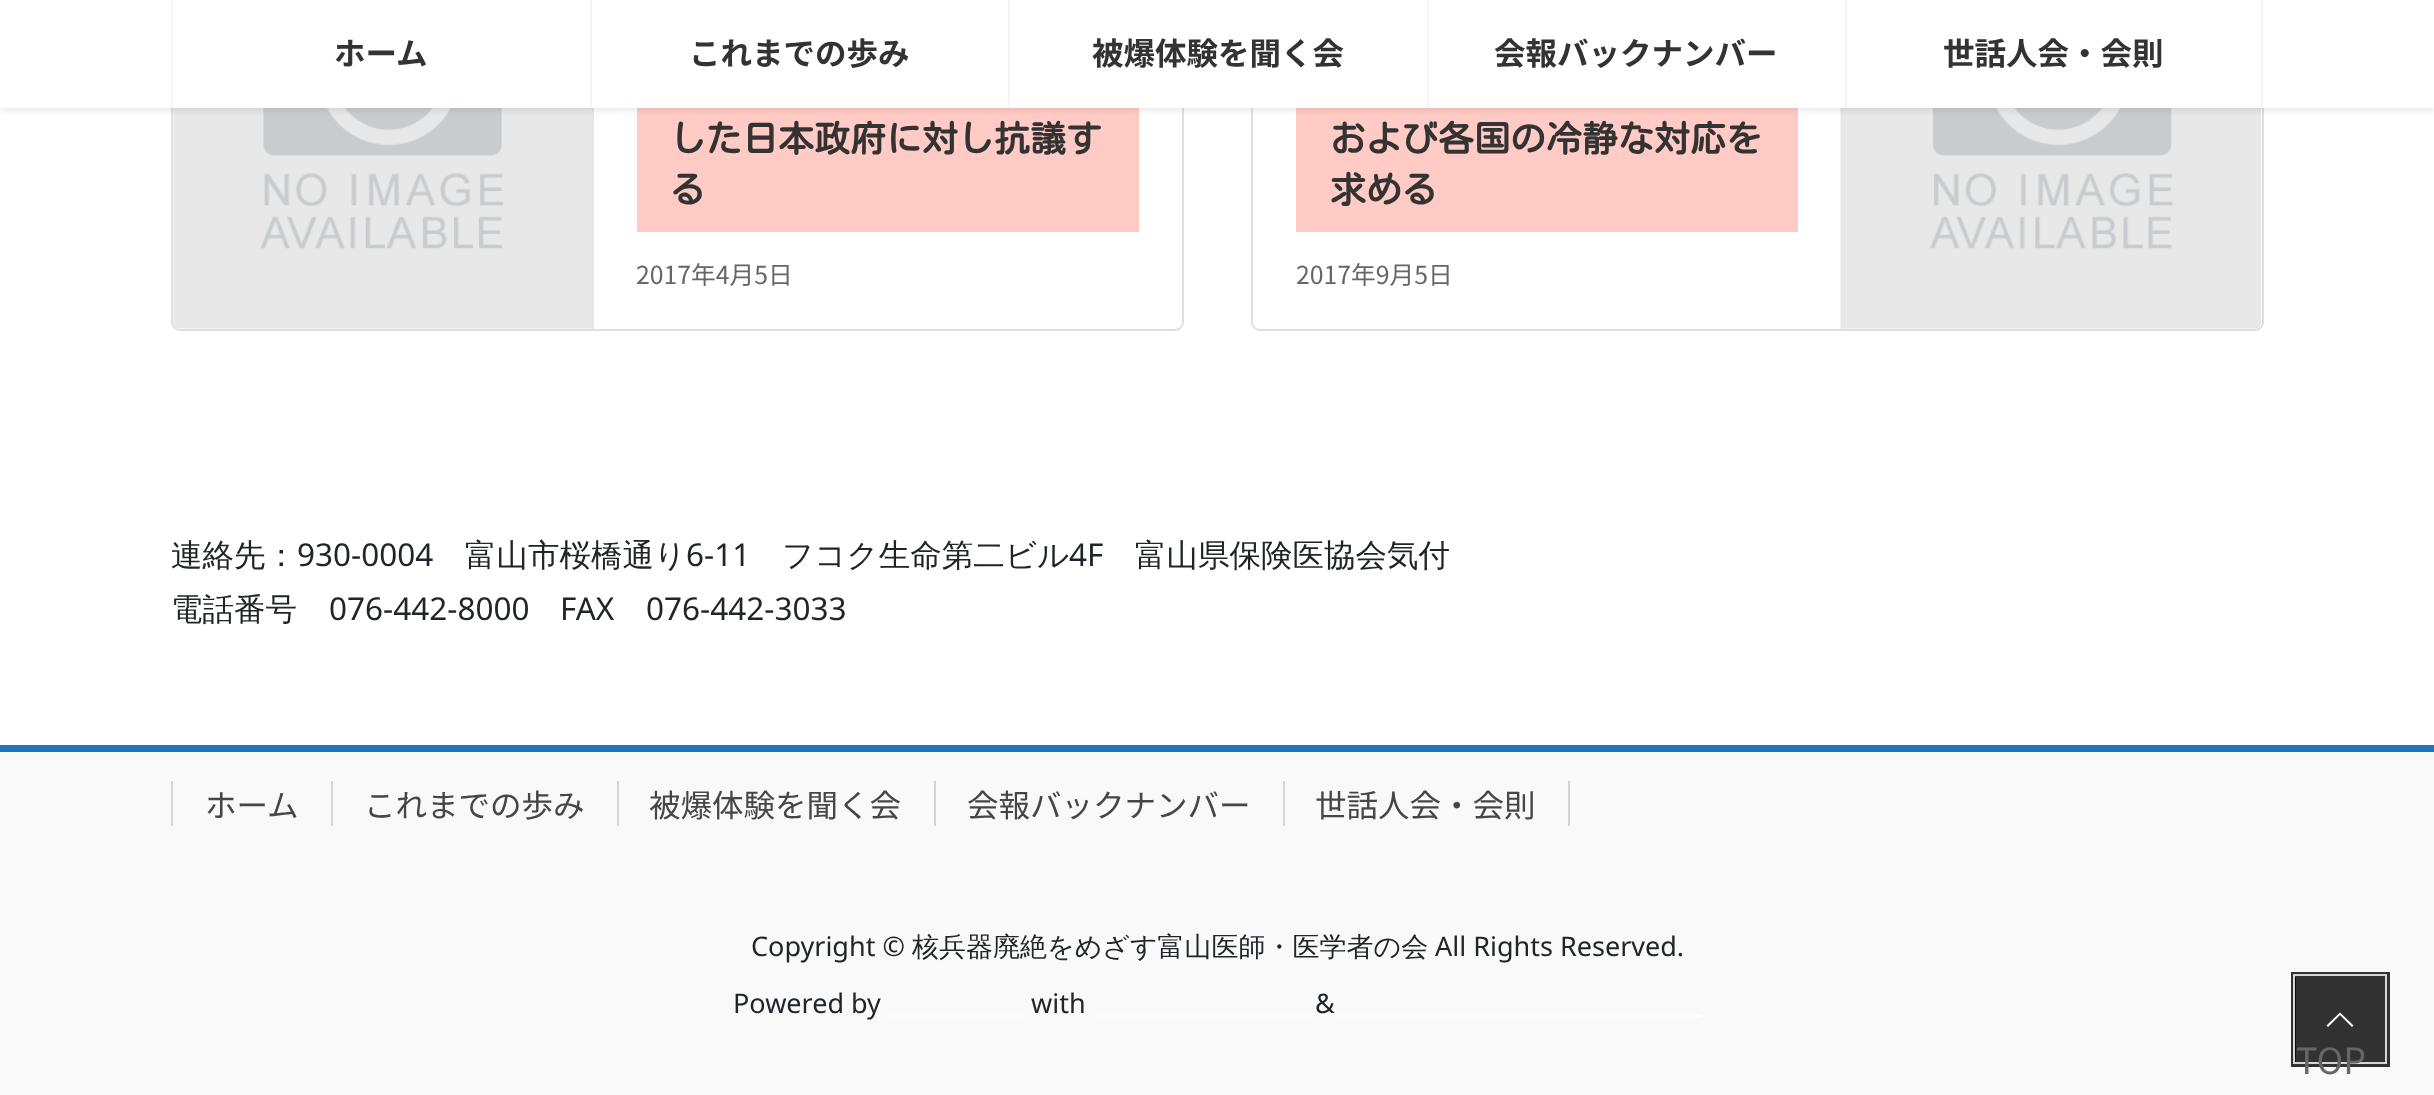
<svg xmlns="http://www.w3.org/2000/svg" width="2434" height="1095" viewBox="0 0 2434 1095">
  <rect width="100%" height="100%" fill="#fff"/>
  <rect x="172" y="-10" width="1011" height="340" rx="8" fill="none" stroke="#dfdfdf" stroke-width="2"/>
  <image x="173" y="108" width="419" height="221" href="img/1.png"/>
  <path d="M592 108h2v221H592z" fill="#e5e5e5"/>
  <path d="M637 108h502v124H637z" fill="#ffcbc4"/>
  <rect x="1252" y="-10" width="1011" height="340" rx="8" fill="none" stroke="#dfdfdf" stroke-width="2"/>
  <path d="M1296 108h502v124H1296z" fill="#ffcbc4"/>
  <image x="1840" y="108" width="421" height="221" href="img/2.png"/>
  <path d="M1841 108h2v221H1841z" fill="#e5e5e5"/>
  <path d="M0 2h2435v108H0z" fill="#0000001a" filter="blur(3.5px)"/>
  <path d="M0 0h2434v108H0z" fill="#fff"/>
  <path d="M171 0h2v108H171z" fill="#f5f5f5"/>
  <path d="M590 0h2v108H590z" fill="#f5f5f5"/>
  <path d="M1008 0h2v108H1008z" fill="#f5f5f5"/>
  <path d="M1427 0h2v108H1427z" fill="#f5f5f5"/>
  <path d="M2261 0h2v108H2261z" fill="#f5f5f5"/>
  <path d="M1845 0h2v108H1845z" fill="#f5f5f5"/>
  <path d="M0 752h2434v343H0z" fill="#f9f9f9"/>
  <path d="M0 745h2434v7H0z" fill="#1e73be"/>
  <path d="M171 781h2v45H171z" fill="#d4d4d4"/>
  <path d="M331 781h2v45H331z" fill="#d4d4d4"/>
  <path d="M617 781h2v45H617z" fill="#d4d4d4"/>
  <path d="M934 781h2v45H934z" fill="#d4d4d4"/>
  <path d="M1568 781h2v45H1568z" fill="#d4d4d4"/>
  <path d="M1283 781h2v45H1283z" fill="#d4d4d4"/>
  <path d="M889 1015h135v2H889z" fill="#fff"/>
  <path d="M1094 1015h213v2H1094z" fill="#fff"/>
  <path d="M1341 1015h360v2H1341z" fill="#fff"/>
  <path d="M2293.5 974.5h94v90H2293.5z" fill="none" stroke="#323232" stroke-width="5"/>
  <path d="M2294 975h92v88H2294z" fill="none" stroke="#d6d6d6" stroke-width="2"/>
  <path d="M2295 977h90v85H2295z" fill="#000000cc"/>
  <path d="M2353.5 1025.5L2352 1027L2340 1015L2328 1027L2326.5 1025.5L2340 1012.5Z" fill="#fff"/>
  <g font-family="Noto Sans JP" font-size="31.5" font-weight="bold" fill="#333">
    <text x="334" y="65">ホーム</text>
    <text x="689" y="65">これまでの歩み</text>
    <text x="1092" y="65">被爆体験を聞く会</text>
    <text x="1494" y="65">会報バックナンバー</text>
    <text x="1943" y="65">世話人会・会則</text>
  </g>
  <g font-family="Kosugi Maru" font-size="36" font-weight="bold" fill="#333">
    <text x="670" y="152">した日本政府に対し抗議す</text>
    <text x="670" y="203">る</text>
  </g>
  <text x="636" y="284" font-family="Noto Sans JP" font-size="24.75" fill="#666">2017年4月5日</text>
  <g font-family="Kosugi Maru" font-size="36" font-weight="bold" fill="#333">
    <text x="1330" y="152">および各国の冷静な対応を</text>
    <text x="1330" y="203">求める</text>
  </g>
  <text x="1296" y="284" font-family="Noto Sans JP" font-size="24.75" fill="#666">2017年9月5日</text>
  <text x="171" y="566" font-family="WenQuanYi Zen Hei" font-size="31.5" font-weight="500" fill="#212529">連絡先：</text>
  <text x="297" y="566" font-family="Noto Sans" font-size="31.5" fill="#212529">930-0004</text>
  <text x="465" y="566" font-family="WenQuanYi Zen Hei" font-size="31.5" font-weight="500" fill="#212529">富山市桜橋通り</text>
  <text x="686" y="566" font-family="Noto Sans" font-size="31.5" fill="#212529">6-11</text>
  <text x="782" y="566" font-family="WenQuanYi Zen Hei" font-size="31.5" font-weight="500" fill="#212529">フコク生命第二ビル</text>
  <text x="1069" y="566" font-family="Noto Sans" font-size="31.5" fill="#212529">4F</text>
  <g font-family="WenQuanYi Zen Hei" font-size="31.5" font-weight="500" fill="#212529">
    <text x="1135" y="566">富山県保険医協会気付</text>
    <text x="171" y="620">電話番号</text>
  </g>
  <g font-family="Noto Sans" font-size="31.5" fill="#212529">
    <text x="329" y="620">076-442-8000</text>
    <text x="560" y="620">FAX</text>
    <text x="646" y="620">076-442-3033</text>
  </g>
  <g font-family="Noto Sans JP" font-size="31.5" fill="#464646">
    <text x="205" y="817">ホーム</text>
    <text x="364" y="817">これまでの歩み</text>
    <text x="649" y="817">被爆体験を聞く会</text>
    <text x="967" y="817">会報バックナンバー</text>
    <text x="1315" y="817">世話人会・会則</text>
  </g>
  <text x="751" y="956" font-family="Noto Sans" font-size="27" fill="#212529">Copyright ©</text>
  <text x="912" y="956" font-family="WenQuanYi Zen Hei" font-size="27" font-weight="500" fill="#212529">核兵器廃絶をめざす富山医師・医学者の会</text>
  <g font-family="Noto Sans" font-size="27" fill="#212529">
    <text x="1435" y="956">All Rights Reserved.</text>
    <text x="733" y="1013">Powered by</text>
    <text x="1031" y="1013">with</text>
    <text x="1315" y="1013">&amp;</text>
  </g>
  <text x="2296" y="1074" font-family="Noto Sans JP" font-size="36" fill="#666">TOP</text>
</svg>
